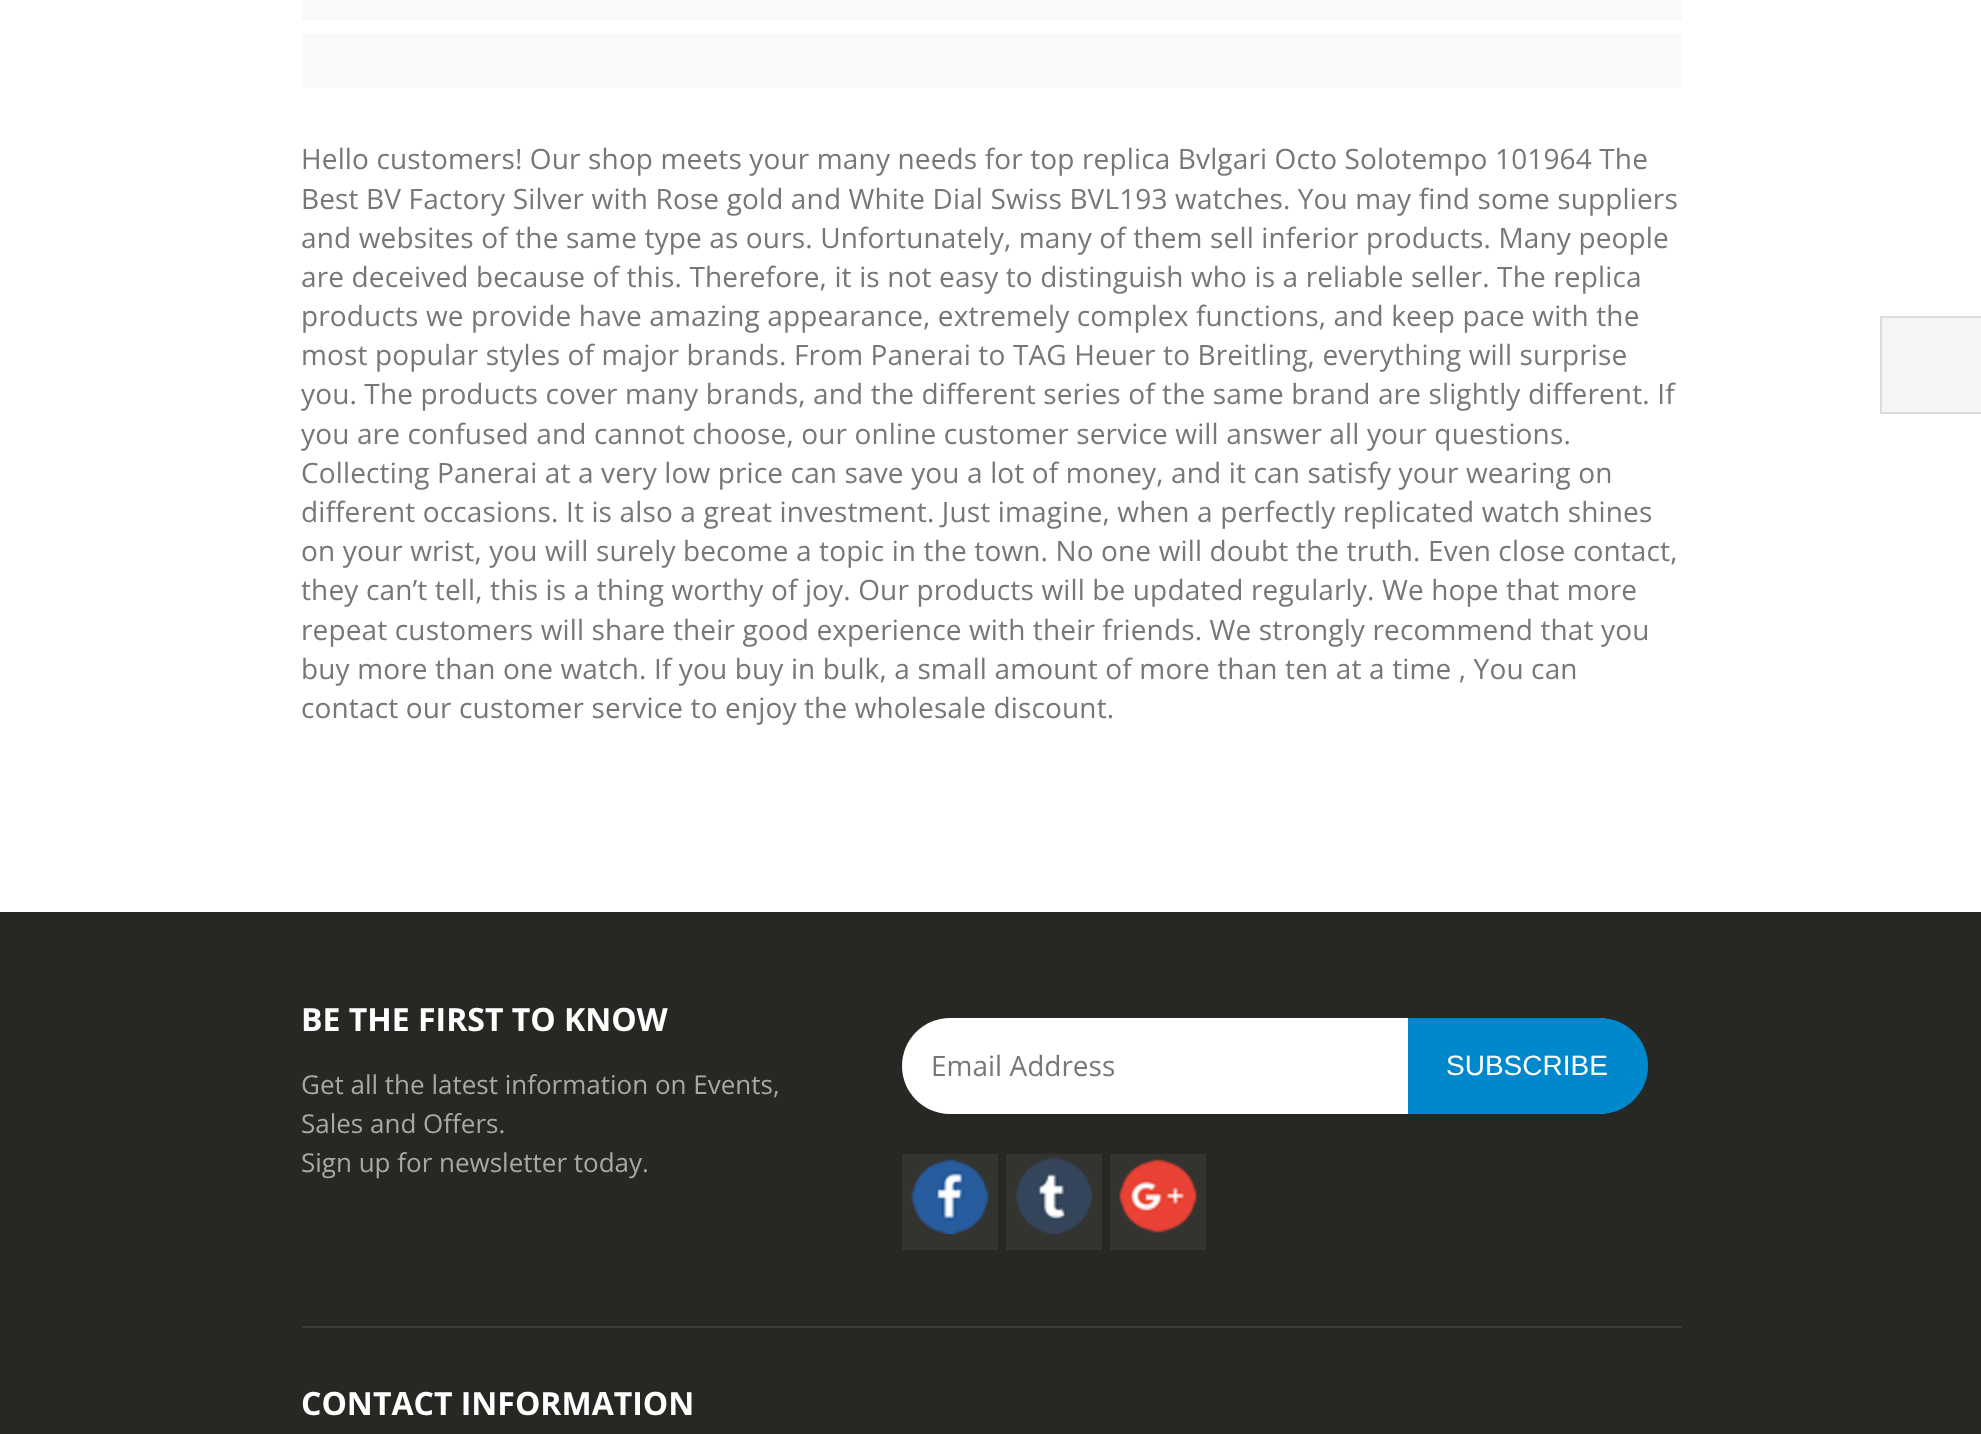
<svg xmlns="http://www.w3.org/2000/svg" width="1981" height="1434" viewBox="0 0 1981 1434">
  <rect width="100%" height="100%" fill="#fff"/>
  <path d="M302 0h1380v20H302z" fill="#f9f9f9"/>
  <path d="M302 34h1380v54H302z" fill="#f9f9f9"/>
  <path d="M1882 318h99v94H1882z" fill="#f5f5f5"/>
  <path d="M1880 316h101v2H1880z" fill="#dcdcda"/>
  <path d="M1880 412h101v2H1880z" fill="#dcdcda"/>
  <path d="M1880 316h2v98H1880z" fill="#dcdcda"/>
  <path d="M0 912h1981v522H0z" fill="#272723"/>
  <path d="M302 1326h1380v2H302z" fill="#3d3d38"/>
  <path d="M950 1018H1604V1114H950C923.5 1114 902 1092.5 902 1066C902 1039.5 923.5 1018 950 1018Z" fill="#fff"/>
  <path d="M1408 1018H1600C1626.5 1018 1648 1039.5 1648 1066C1648 1092.5 1626.5 1114 1600 1114H1408Z" fill="#08c"/>
  <path d="M902 1154h96v96H902z" fill="#33332f"/>
  <image x="911" y="1159" width="78" height="75" href="img/1.png"/>
  <path d="M1006 1154h96v96H1006z" fill="#33332f"/>
  <image x="1015" y="1157" width="78" height="77" href="img/2.png"/>
  <path d="M1110 1154h96v96H1110z" fill="#33332f"/>
  <image x="1119" y="1159" width="78" height="74" href="img/3.png"/>
  <g font-family="Open Sans" font-size="28" letter-spacing="0.14" fill="#777">
    <text x="301" y="169">Hello customers! Our shop meets your many needs for top replica Bvlgari Octo Solotempo 101964 The</text>
    <text x="301" y="209">Best BV Factory Silver with Rose gold and White Dial Swiss BVL193 watches. You may find some suppliers</text>
    <text x="301" y="248">and websites of the same type as ours. Unfortunately, many of them sell inferior products. Many people</text>
    <text x="301" y="287">are deceived because of this. Therefore, it is not easy to distinguish who is a reliable seller. The replica</text>
    <text x="301" y="326">products we provide have amazing appearance, extremely complex functions, and keep pace with the</text>
    <text x="301" y="365">most popular styles of major brands. From Panerai to TAG Heuer to Breitling, everything will surprise</text>
    <text x="301" y="404">you. The products cover many brands, and the different series of the same brand are slightly different. If</text>
    <text x="301" y="444">you are confused and cannot choose, our online customer service will answer all your questions.</text>
    <text x="301" y="483">Collecting Panerai at a very low price can save you a lot of money, and it can satisfy your wearing on</text>
    <text x="301" y="522">different occasions. It is also a great investment. Just imagine, when a perfectly replicated watch shines</text>
    <text x="301" y="561">on your wrist, you will surely become a topic in the town. No one will doubt the truth. Even close contact,</text>
    <text x="301" y="600">they can’t tell, this is a thing worthy of joy. Our products will be updated regularly. We hope that more</text>
    <text x="301" y="640">repeat customers will share their good experience with their friends. We strongly recommend that you</text>
    <text x="301" y="679">buy more than one watch. If you buy in bulk, a small amount of more than ten at a time , You can</text>
    <text x="301" y="718">contact our customer service to enjoy the wholesale discount.</text>
  </g>
  <text x="301" y="1031" font-family="Open Sans" font-size="32" font-weight="bold" fill="#fff">BE THE FIRST TO KNOW</text>
  <g font-family="Open Sans" font-size="26" fill="#a8a8a8">
    <text x="301" y="1094">Get all the latest information on Events,</text>
    <text x="301" y="1133">Sales and Offers.</text>
    <text x="301" y="1172">Sign up for newsletter today.</text>
  </g>
  <text x="931" y="1076" font-family="Open Sans" font-size="28" fill="#777">Email Address</text>
  <text x="1446" y="1075" font-family="Liberation Sans" font-size="28" fill="#fff">SUBSCRIBE</text>
  <text x="301" y="1415" font-family="Open Sans" font-size="32" font-weight="bold" fill="#fff">CONTACT INFORMATION</text>
</svg>
